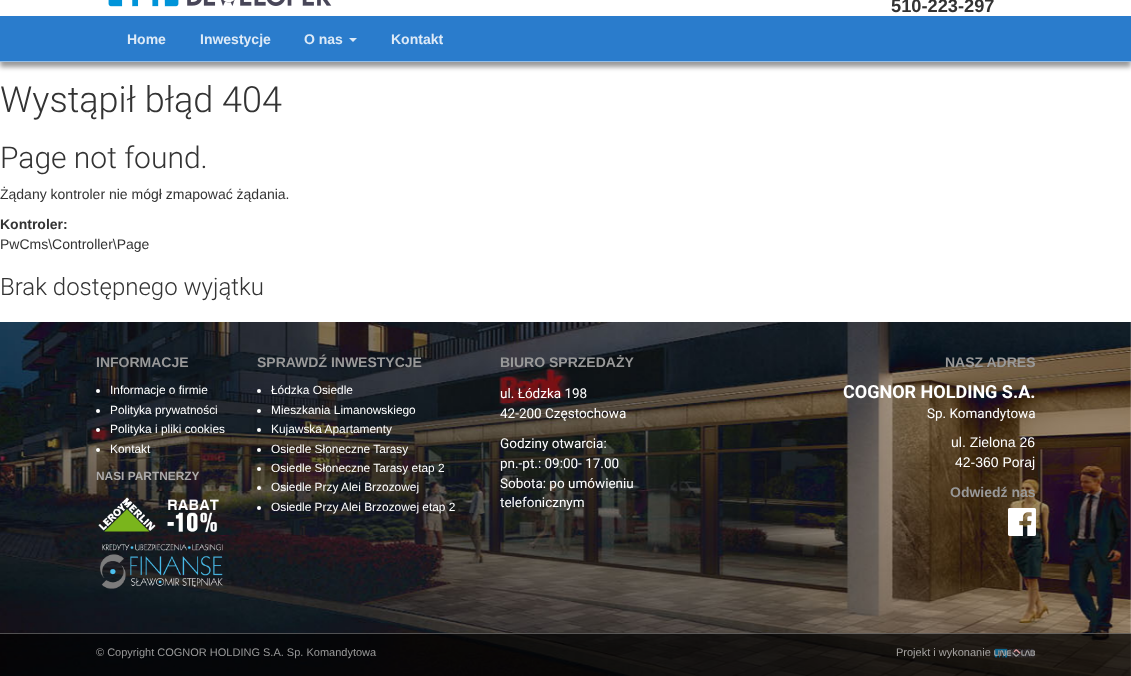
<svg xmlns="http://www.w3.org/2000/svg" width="1131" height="676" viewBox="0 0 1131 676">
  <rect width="100%" height="100%" fill="#fff"/>
  <image x="108" y="0" width="224" height="7" href="img/1.png"/>
  <path d="M0 21h1131v46H0z" fill="#00000066" filter="blur(2.5px)"/>
  <path d="M0 16h1131v45H0z" fill="#2a7ccc"/>
  <path d="M0 61h1131v1H0z" fill="#95bee6"/>
  <path d="M349 38H357L353 42Z" fill="#ddeaf7"/>
  <image x="0" y="322" width="1131" height="354" href="img/2.png"/>
  <circle cx="98" cy="391" r="2" fill="#fff"/>
  <circle cx="98" cy="411" r="2" fill="#fff"/>
  <circle cx="98" cy="430" r="2" fill="#fff"/>
  <circle cx="98" cy="450" r="2" fill="#fff"/>
  <image x="98" y="497" width="125" height="92" href="img/3.png"/>
  <circle cx="259" cy="391" r="2" fill="#fff"/>
  <circle cx="259" cy="411" r="2" fill="#fff"/>
  <circle cx="259" cy="430" r="2" fill="#fff"/>
  <circle cx="259" cy="450" r="2" fill="#fff"/>
  <circle cx="259" cy="469" r="2" fill="#fff"/>
  <circle cx="259" cy="488" r="2" fill="#fff"/>
  <circle cx="259" cy="508" r="2" fill="#fff"/>
  <image x="1008" y="508" width="28" height="28" href="img/4.png"/>
  <path d="M0 633h1131v43H0z" fill="#000000b3"/>
  <path d="M0 633h1131v1H0z" fill="#ffffff4d"/>
  <image x="994" y="648" width="41" height="10" href="img/5.png"/>
  <text x="891" y="12" font-family="Liberation Sans" font-size="18.25" font-weight="bold" fill="#333">510-223-297</text>
  <g font-family="Liberation Sans" font-size="14" font-weight="bold" fill="#ddeaf7">
    <text x="127" y="44">Home</text>
    <text x="200" y="44">Inwestycje</text>
    <text x="304" y="44">O nas</text>
    <text x="391" y="44">Kontakt</text>
  </g>
  <text x="0" y="112" font-family="Roboto" font-size="36" font-weight="300" fill="#333">Wystąpił błąd 404</text>
  <text x="0" y="168" font-family="Roboto" font-size="30" font-weight="300" fill="#333">Page not found.</text>
  <text x="0" y="199" font-family="Liberation Sans" font-size="14" fill="#333">Żądany kontroler nie mógł zmapować żądania.</text>
  <text x="0" y="229" font-family="Liberation Sans" font-size="14" font-weight="bold" fill="#333">Kontroler:</text>
  <text x="0" y="249" font-family="Liberation Sans" font-size="14" fill="#333">PwCms\Controller\Page</text>
  <text x="0" y="295" font-family="Roboto" font-size="24" font-weight="300" fill="#333">Brak dostępnego wyjątku</text>
  <text x="96" y="367" font-family="Liberation Sans" font-size="14" font-weight="bold" fill="#999">INFORMACJE</text>
  <g font-family="Liberation Sans" font-size="11.9" fill="#fff">
    <text x="110" y="394">Informacje o firmie</text>
    <text x="110" y="414">Polityka prywatności</text>
    <text x="110" y="433">Polityka i pliki cookies</text>
    <text x="110" y="453">Kontakt</text>
  </g>
  <text x="96" y="480" font-family="Liberation Sans" font-size="11.9" font-weight="bold" fill="#acaaaa">NASI PARTNERZY</text>
  <text x="257" y="367" font-family="Liberation Sans" font-size="14" font-weight="bold" fill="#999">SPRAWDŹ INWESTYCJE</text>
  <g font-family="Liberation Sans" font-size="11.9" fill="#fff">
    <text x="271" y="394">Łódzka Osiedle</text>
    <text x="271" y="414">Mieszkania Limanowskiego</text>
    <text x="271" y="433">Kujawska Apartamenty</text>
    <text x="271" y="453">Osiedle Słoneczne Tarasy</text>
    <text x="271" y="472">Osiedle Słoneczne Tarasy etap 2</text>
    <text x="271" y="491">Osiedle Przy Alei Brzozowej</text>
    <text x="271" y="511">Osiedle Przy Alei Brzozowej etap 2</text>
  </g>
  <text x="500" y="367" font-family="Liberation Sans" font-size="14" font-weight="bold" fill="#999">BIURO SPRZEDAŻY</text>
  <g font-family="Roboto" font-size="13.5" fill="#fff">
    <text x="500" y="398">ul. Łódzka 198</text>
    <text x="500" y="418">42-200 Częstochowa</text>
    <text x="500" y="448">Godziny otwarcia:</text>
    <text x="500" y="468">pn.-pt.: 09:00- 17.00</text>
    <text x="500" y="488">Sobota: po umówieniu</text>
    <text x="500" y="507">telefonicznym</text>
  </g>
  <text x="945" y="367" font-family="Liberation Sans" font-size="14" font-weight="bold" fill="#999">NASZ ADRES</text>
  <text x="843" y="398" font-family="Roboto" font-size="18" font-weight="bold" fill="#fff">COGNOR HOLDING S.A.</text>
  <text x="927" y="418" font-family="Roboto" font-size="13.5" fill="#fff">Sp. Komandytowa</text>
  <g font-family="Liberation Sans" font-size="14" fill="#fff">
    <text x="951" y="447">ul. Zielona 26</text>
    <text x="955" y="467">42-360 Poraj</text>
  </g>
  <text x="950" y="497" font-family="Liberation Sans" font-size="14" font-weight="bold" fill="#999">Odwiedź nas</text>
  <text x="96" y="656" font-family="Liberation Sans" font-size="11" fill="#999">© Copyright COGNOR HOLDING S.A. Sp. Komandytowa</text>
  <text x="896" y="656" font-family="Liberation Sans" font-size="11" fill="#a4a2a0">Projekt i wykonanie</text>
</svg>
